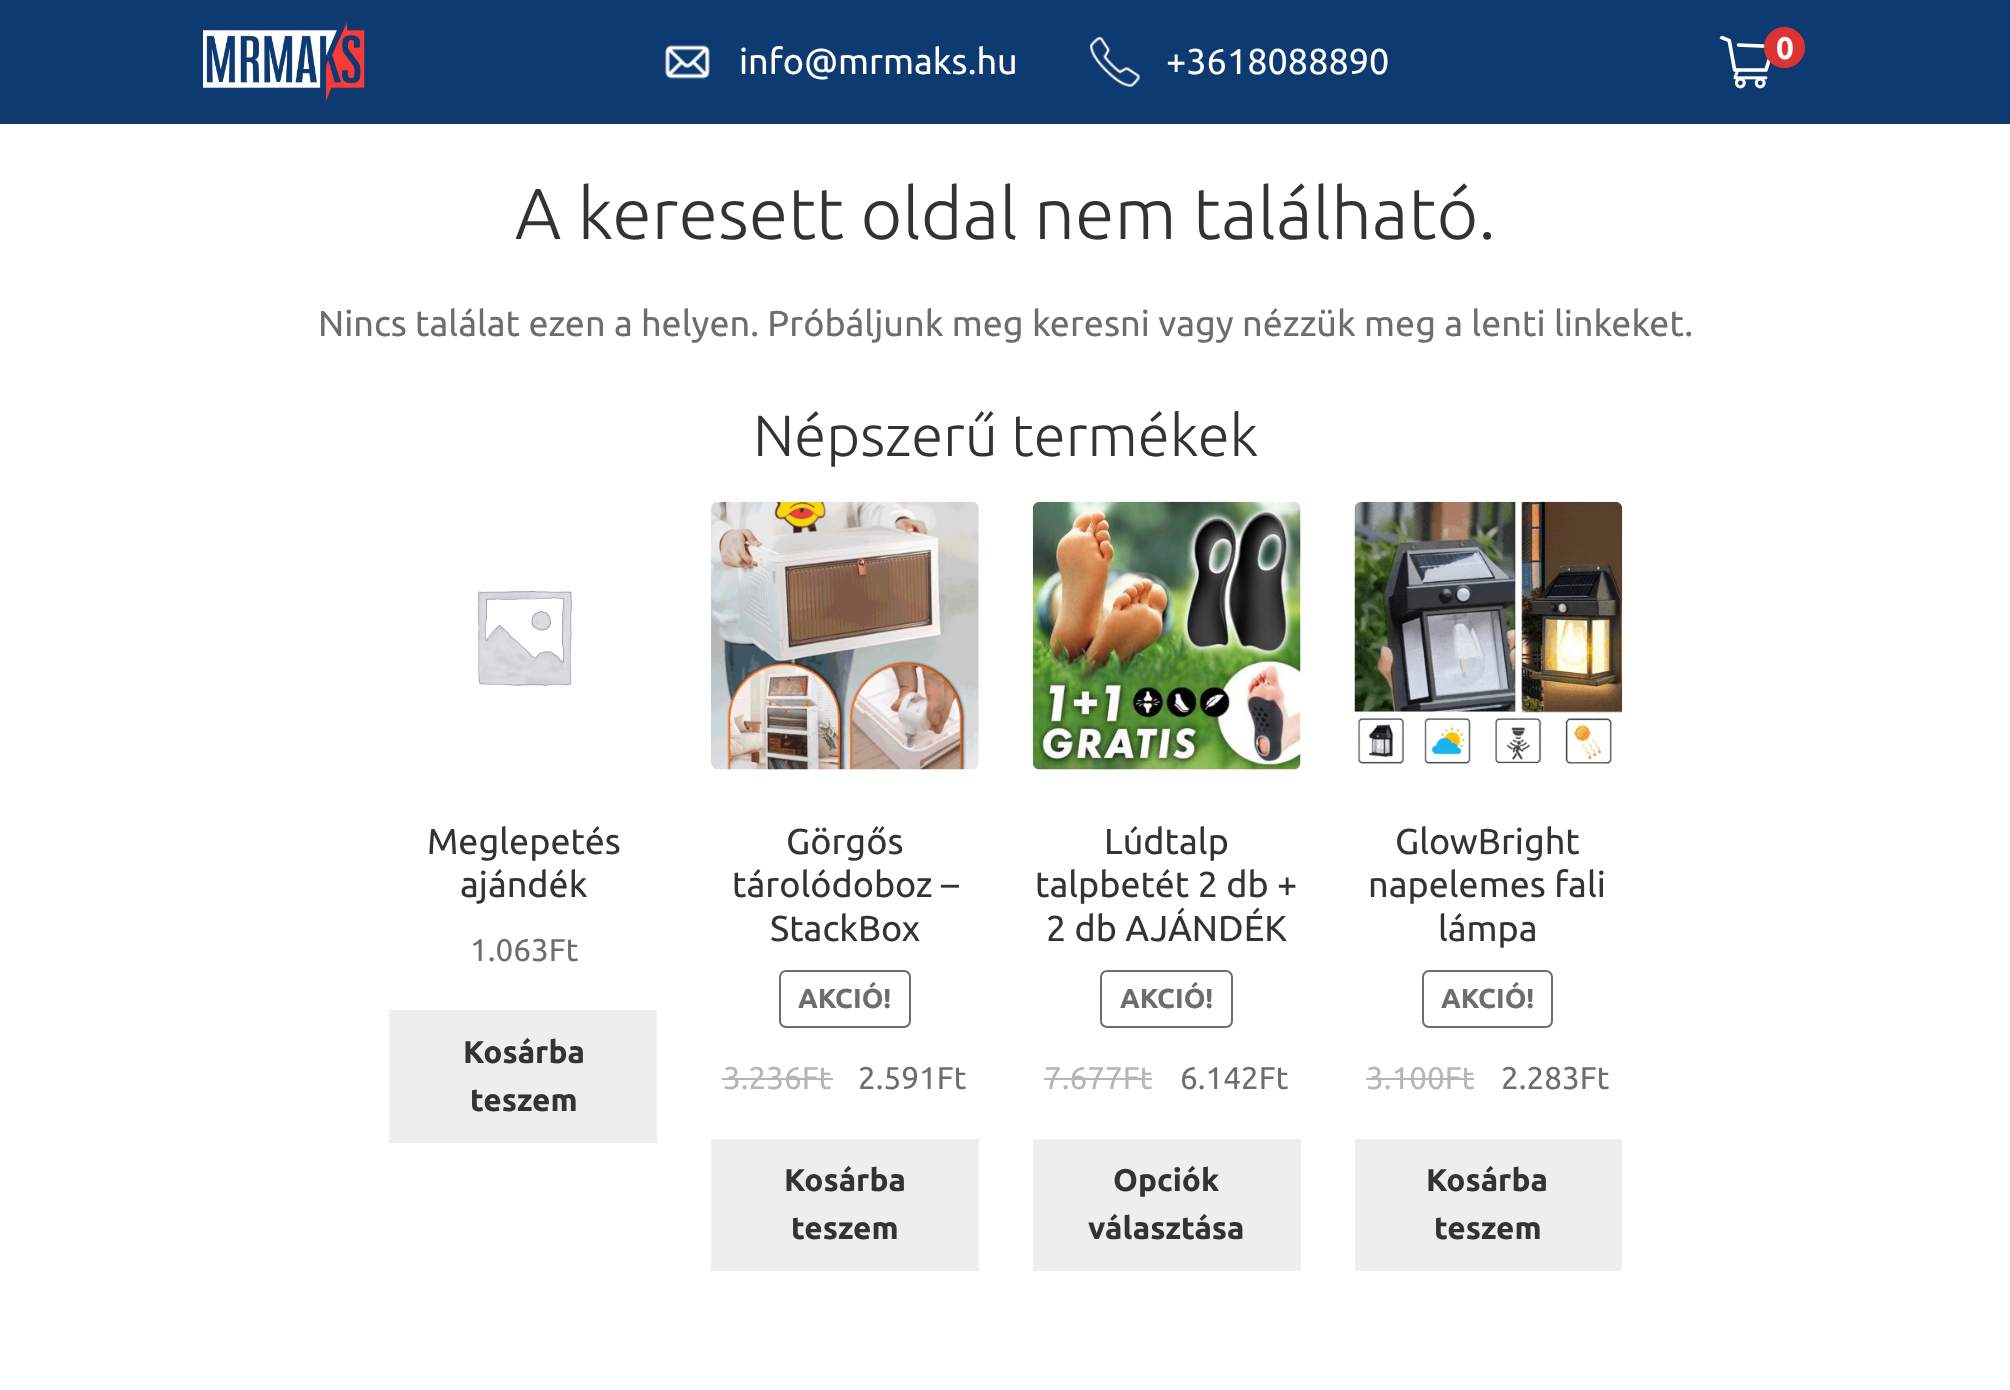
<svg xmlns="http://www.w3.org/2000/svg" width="2010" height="1390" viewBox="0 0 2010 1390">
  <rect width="100%" height="100%" fill="#fff"/>
  <path d="M0 0h2010v124H0z" fill="#0c3a71"/>
  <image x="203" y="22" width="162" height="79" href="img/1.png"/>
  <image x="665" y="45" width="45" height="34" href="img/2.png"/>
  <image x="1090" y="37" width="50" height="50" href="img/3.png"/>
  <image x="1719" y="35" width="52" height="54" href="img/4.png"/>
  <circle cx="1784.5" cy="47.5" r="19.5" fill="#d33" stroke="#d33" stroke-width="2"/>
  <image x="477" y="591" width="95" height="95" href="img/5.png"/>
  <path d="M389 1010h268v133H389z" fill="#eee"/>
  <image x="711" y="501" width="268" height="269" href="img/6.png"/>
  <rect x="780" y="971" width="130" height="56" rx="6" fill="none" stroke="#6d6d6d" stroke-width="2"/>
  <path d="M722 1078h111v2H722z" fill="#b6b6b6"/>
  <path d="M711 1139h268v132H711z" fill="#eee"/>
  <image x="1032" y="501" width="269" height="269" href="img/7.png"/>
  <rect x="1101" y="971" width="131" height="56" rx="6" fill="none" stroke="#6d6d6d" stroke-width="2"/>
  <path d="M1044 1078h108v2H1044z" fill="#b6b6b6"/>
  <path d="M1033 1139h268v132H1033z" fill="#eee"/>
  <image x="1354" y="501" width="269" height="263" href="img/8.png"/>
  <rect x="1423" y="971" width="129" height="56" rx="6" fill="none" stroke="#6d6d6d" stroke-width="2"/>
  <path d="M1366 1078h108v2H1366z" fill="#b6b6b6"/>
  <path d="M1355 1139h267v132H1355z" fill="#eee"/>
  <g font-family="Ubuntu" font-size="36" fill="#fff">
    <text x="739" y="74">info@mrmaks.hu</text>
    <text x="1166" y="74">+3618088890</text>
  </g>
  <text x="1776" y="59" font-family="Ubuntu" font-size="31.5" font-weight="bold" fill="#fff">0</text>
  <text x="515" y="239" font-family="Ubuntu" font-size="72" font-weight="300" fill="#333">A keresett oldal nem található.</text>
  <text x="318" y="336" font-family="Ubuntu" font-size="36" fill="#6d6d6d">Nincs találat ezen a helyen. Próbáljunk meg keresni vagy nézzük meg a lenti linkeket.</text>
  <text x="753" y="456" font-family="Ubuntu" font-size="58.25" font-weight="300" fill="#333">Népszerű termékek</text>
  <g font-family="Ubuntu" font-size="36" fill="#333">
    <text x="427" y="854">Meglepetés</text>
    <text x="460" y="897">ajándék</text>
  </g>
  <text x="470" y="961" font-family="Ubuntu" font-size="31.5" fill="#6d6d6d">1.063Ft</text>
  <g font-family="Ubuntu" font-size="31.5" font-weight="bold" fill="#333">
    <text x="463" y="1063">Kosárba</text>
    <text x="470" y="1111">teszem</text>
  </g>
  <g font-family="Ubuntu" font-size="36" fill="#333">
    <text x="786" y="854">Görgős</text>
    <text x="732" y="897">tárolódoboz –</text>
    <text x="770" y="941">StackBox</text>
  </g>
  <text x="798" y="1008" font-family="Ubuntu" font-size="27.5" font-weight="bold" fill="#6d6d6d">AKCIÓ!</text>
  <text x="723" y="1089" font-family="Ubuntu" font-size="31.5" fill="#b6b6b6">3.236Ft</text>
  <text x="858" y="1089" font-family="Ubuntu" font-size="31.5" fill="#6d6d6d">2.591Ft</text>
  <g font-family="Ubuntu" font-size="31.5" font-weight="bold" fill="#333">
    <text x="784" y="1191">Kosárba</text>
    <text x="791" y="1239">teszem</text>
  </g>
  <g font-family="Ubuntu" font-size="36" fill="#333">
    <text x="1104" y="854">Lúdtalp</text>
    <text x="1035" y="897">talpbetét 2 db +</text>
    <text x="1046" y="941">2 db AJÁNDÉK</text>
  </g>
  <text x="1120" y="1008" font-family="Ubuntu" font-size="27.5" font-weight="bold" fill="#6d6d6d">AKCIÓ!</text>
  <text x="1044" y="1089" font-family="Ubuntu" font-size="31.5" fill="#b6b6b6">7.677Ft</text>
  <text x="1180" y="1089" font-family="Ubuntu" font-size="31.5" fill="#6d6d6d">6.142Ft</text>
  <g font-family="Ubuntu" font-size="31.5" font-weight="bold" fill="#333">
    <text x="1113" y="1191">Opciók</text>
    <text x="1088" y="1239">választása</text>
  </g>
  <g font-family="Ubuntu" font-size="36" fill="#333">
    <text x="1395" y="854">GlowBright</text>
    <text x="1368" y="897">napelemes fali</text>
    <text x="1438" y="941">lámpa</text>
  </g>
  <text x="1441" y="1008" font-family="Ubuntu" font-size="27.5" font-weight="bold" fill="#6d6d6d">AKCIÓ!</text>
  <text x="1366" y="1089" font-family="Ubuntu" font-size="31.5" fill="#b6b6b6">3.100Ft</text>
  <text x="1501" y="1089" font-family="Ubuntu" font-size="31.5" fill="#6d6d6d">2.283Ft</text>
  <g font-family="Ubuntu" font-size="31.5" font-weight="bold" fill="#333">
    <text x="1426" y="1191">Kosárba</text>
    <text x="1434" y="1239">teszem</text>
  </g>
</svg>
